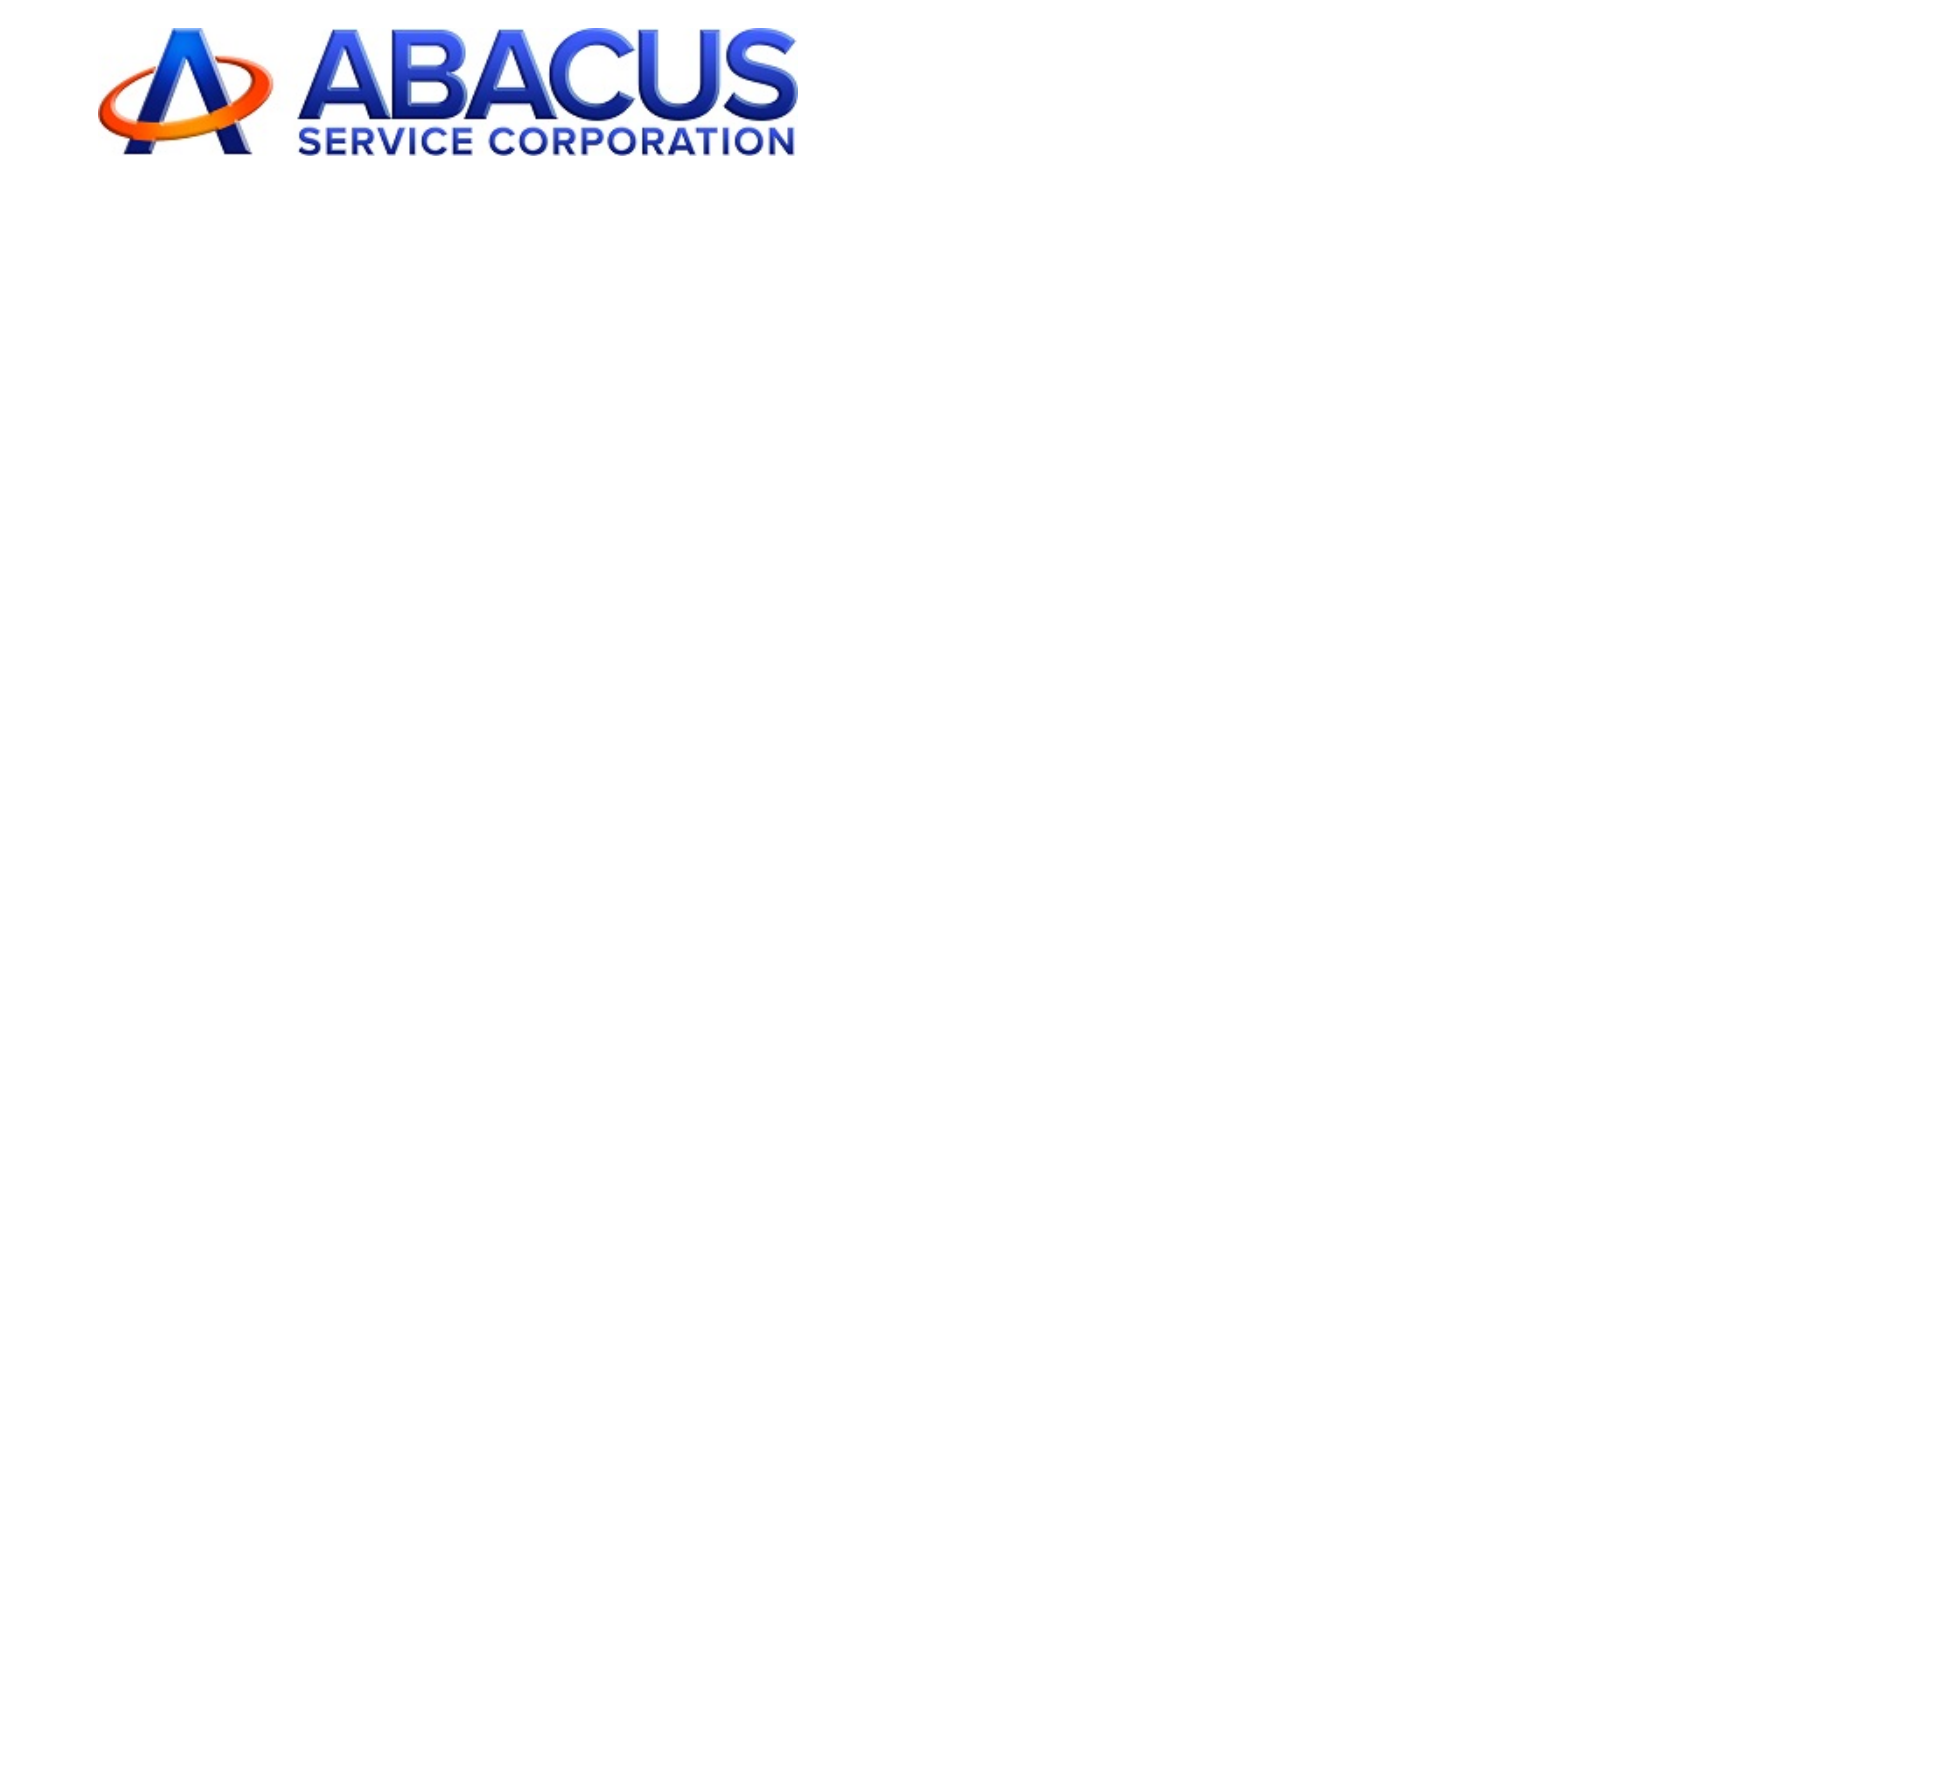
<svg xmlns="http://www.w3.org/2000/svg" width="1959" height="1792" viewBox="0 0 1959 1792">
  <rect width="100%" height="100%" fill="#fff"/>
  <image x="98" y="28" width="700" height="128" href="img/1.png"/>
</svg>
